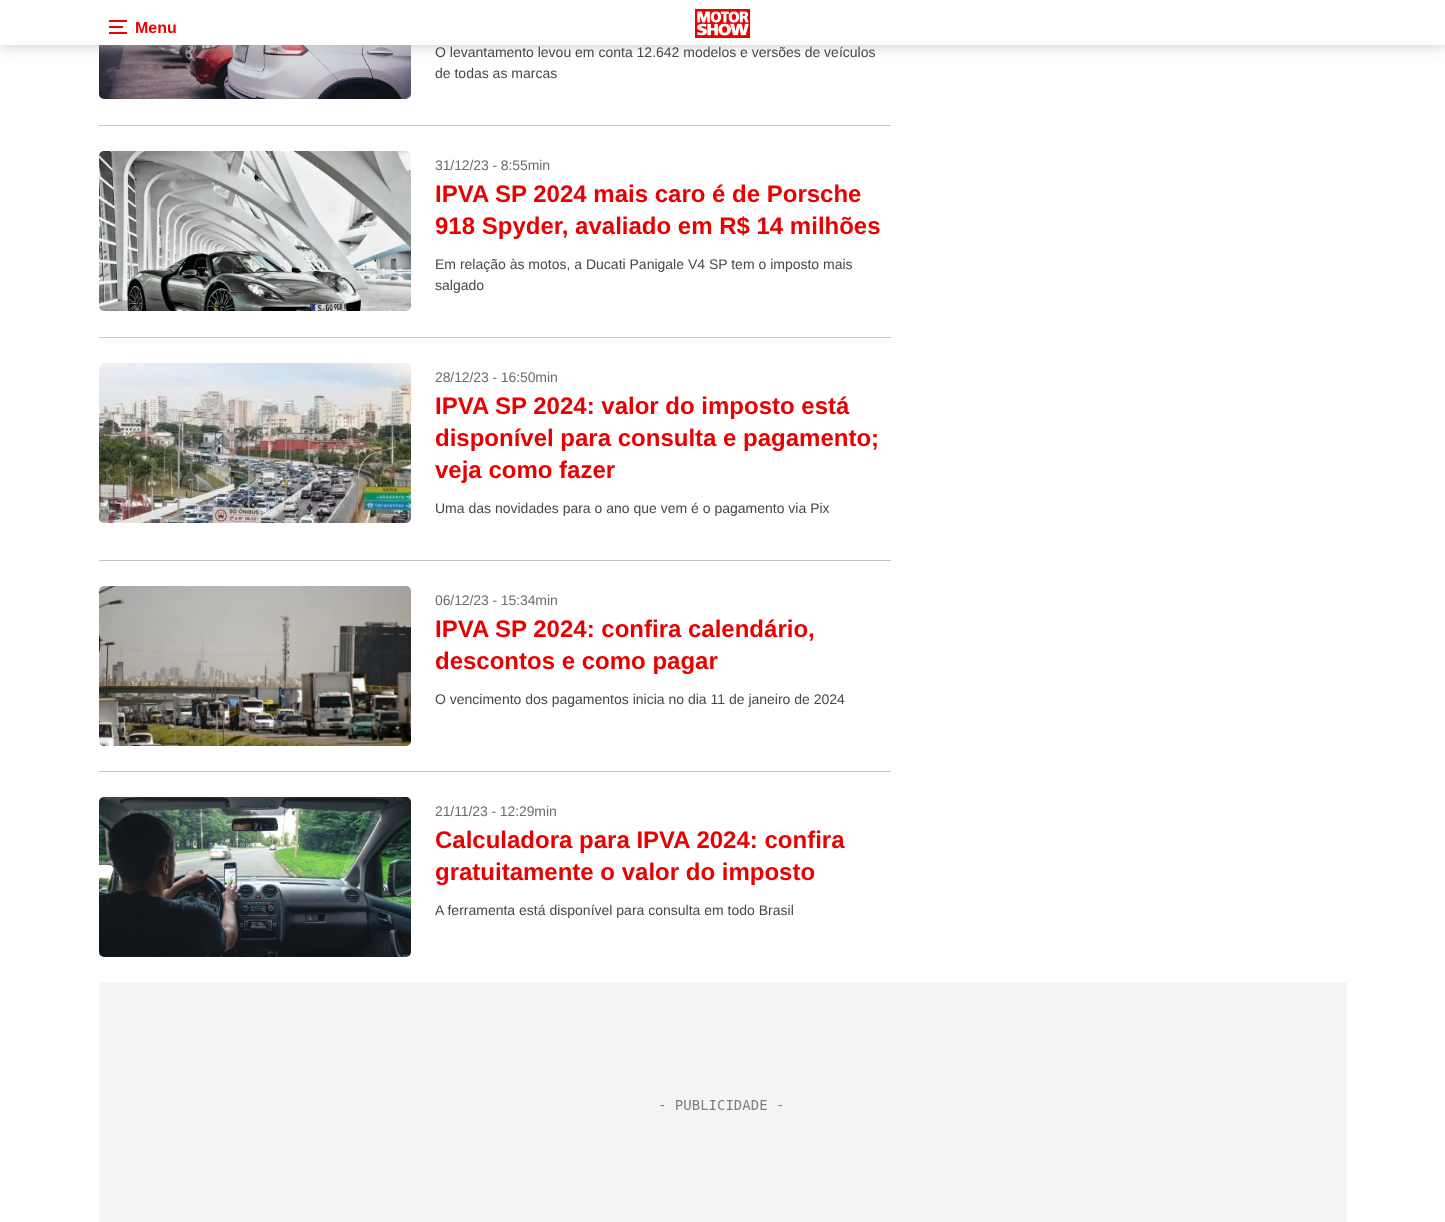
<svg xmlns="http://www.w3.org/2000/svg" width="1445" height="1222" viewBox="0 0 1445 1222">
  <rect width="100%" height="100%" fill="#fff"/>
  <image x="99" y="45" width="312" height="54" href="img/2.png"/>
  <path d="M0 0h1445v44H0z" fill="#bcbcbc" filter="blur(7.5px)"/>
  <path d="M0 0h1445v45H0z" fill="#fff"/>
  <path d="M109 20h18v2H109z" fill="#e90000"/>
  <path d="M109 32h18v2H109z" fill="#e90000"/>
  <path d="M109 26h14v2H109z" fill="#e90000"/>
  <image x="695" y="9" width="55" height="29" href="img/1.png"/>
  <path d="M99 125h792v1H99z" fill="#c4c4c4"/>
  <path d="M99 337h792v1H99z" fill="#c4c4c4"/>
  <image x="99" y="151" width="312" height="160" href="img/3.png"/>
  <path d="M99 560h792v1H99z" fill="#c4c4c4"/>
  <image x="99" y="363" width="312" height="160" href="img/4.png"/>
  <path d="M99 771h792v1H99z" fill="#c4c4c4"/>
  <image x="99" y="586" width="312" height="160" href="img/5.png"/>
  <image x="99" y="797" width="312" height="160" href="img/6.png"/>
  <path d="M99 982h1248v240H99z" fill="#f5f5f5"/>
  <image x="660" y="1100" width="122" height="10" href="img/7.png"/>
  <text x="135" y="33" font-family="Liberation Sans" font-size="16" font-weight="bold" fill="#e90000">Menu</text>
  <g font-family="Liberation Sans" font-size="14" fill="#47474b">
    <text x="435" y="57">O levantamento levou em conta 12.642 modelos e versões de veículos</text>
    <text x="435" y="78">de todas as marcas</text>
  </g>
  <text x="435" y="170" font-family="Liberation Sans" font-size="14" letter-spacing="-0.1" fill="#696d70">31/12/23 - 8:55min</text>
  <g font-family="Liberation Sans" font-size="24" font-weight="bold" fill="#e90000">
    <text x="435" y="202">IPVA SP 2024 mais caro é de Porsche</text>
    <text x="435" y="234">918 Spyder, avaliado em R$ 14 milhões</text>
  </g>
  <g font-family="Liberation Sans" font-size="14" fill="#47474b">
    <text x="435" y="269">Em relação às motos, a Ducati Panigale V4 SP tem o imposto mais</text>
    <text x="435" y="290">salgado</text>
  </g>
  <text x="435" y="382" font-family="Liberation Sans" font-size="14" letter-spacing="-0.1" fill="#696d70">28/12/23 - 16:50min</text>
  <g font-family="Liberation Sans" font-size="24" font-weight="bold" fill="#e90000">
    <text x="435" y="414">IPVA SP 2024: valor do imposto está</text>
    <text x="435" y="446">disponível para consulta e pagamento;</text>
    <text x="435" y="478">veja como fazer</text>
  </g>
  <text x="435" y="513" font-family="Liberation Sans" font-size="14" fill="#47474b">Uma das novidades para o ano que vem é o pagamento via Pix</text>
  <text x="435" y="605" font-family="Liberation Sans" font-size="14" letter-spacing="-0.1" fill="#696d70">06/12/23 - 15:34min</text>
  <g font-family="Liberation Sans" font-size="24" font-weight="bold" fill="#e90000">
    <text x="435" y="637">IPVA SP 2024: confira calendário,</text>
    <text x="435" y="669">descontos e como pagar</text>
  </g>
  <text x="435" y="704" font-family="Liberation Sans" font-size="14" fill="#47474b">O vencimento dos pagamentos inicia no dia 11 de janeiro de 2024</text>
  <text x="435" y="816" font-family="Liberation Sans" font-size="14" letter-spacing="-0.1" fill="#696d70">21/11/23 - 12:29min</text>
  <g font-family="Liberation Sans" font-size="24" font-weight="bold" fill="#e90000">
    <text x="435" y="848">Calculadora para IPVA 2024: confira</text>
    <text x="435" y="880">gratuitamente o valor do imposto</text>
  </g>
  <text x="435" y="915" font-family="Liberation Sans" font-size="14" fill="#47474b">A ferramenta está disponível para consulta em todo Brasil</text>
</svg>
